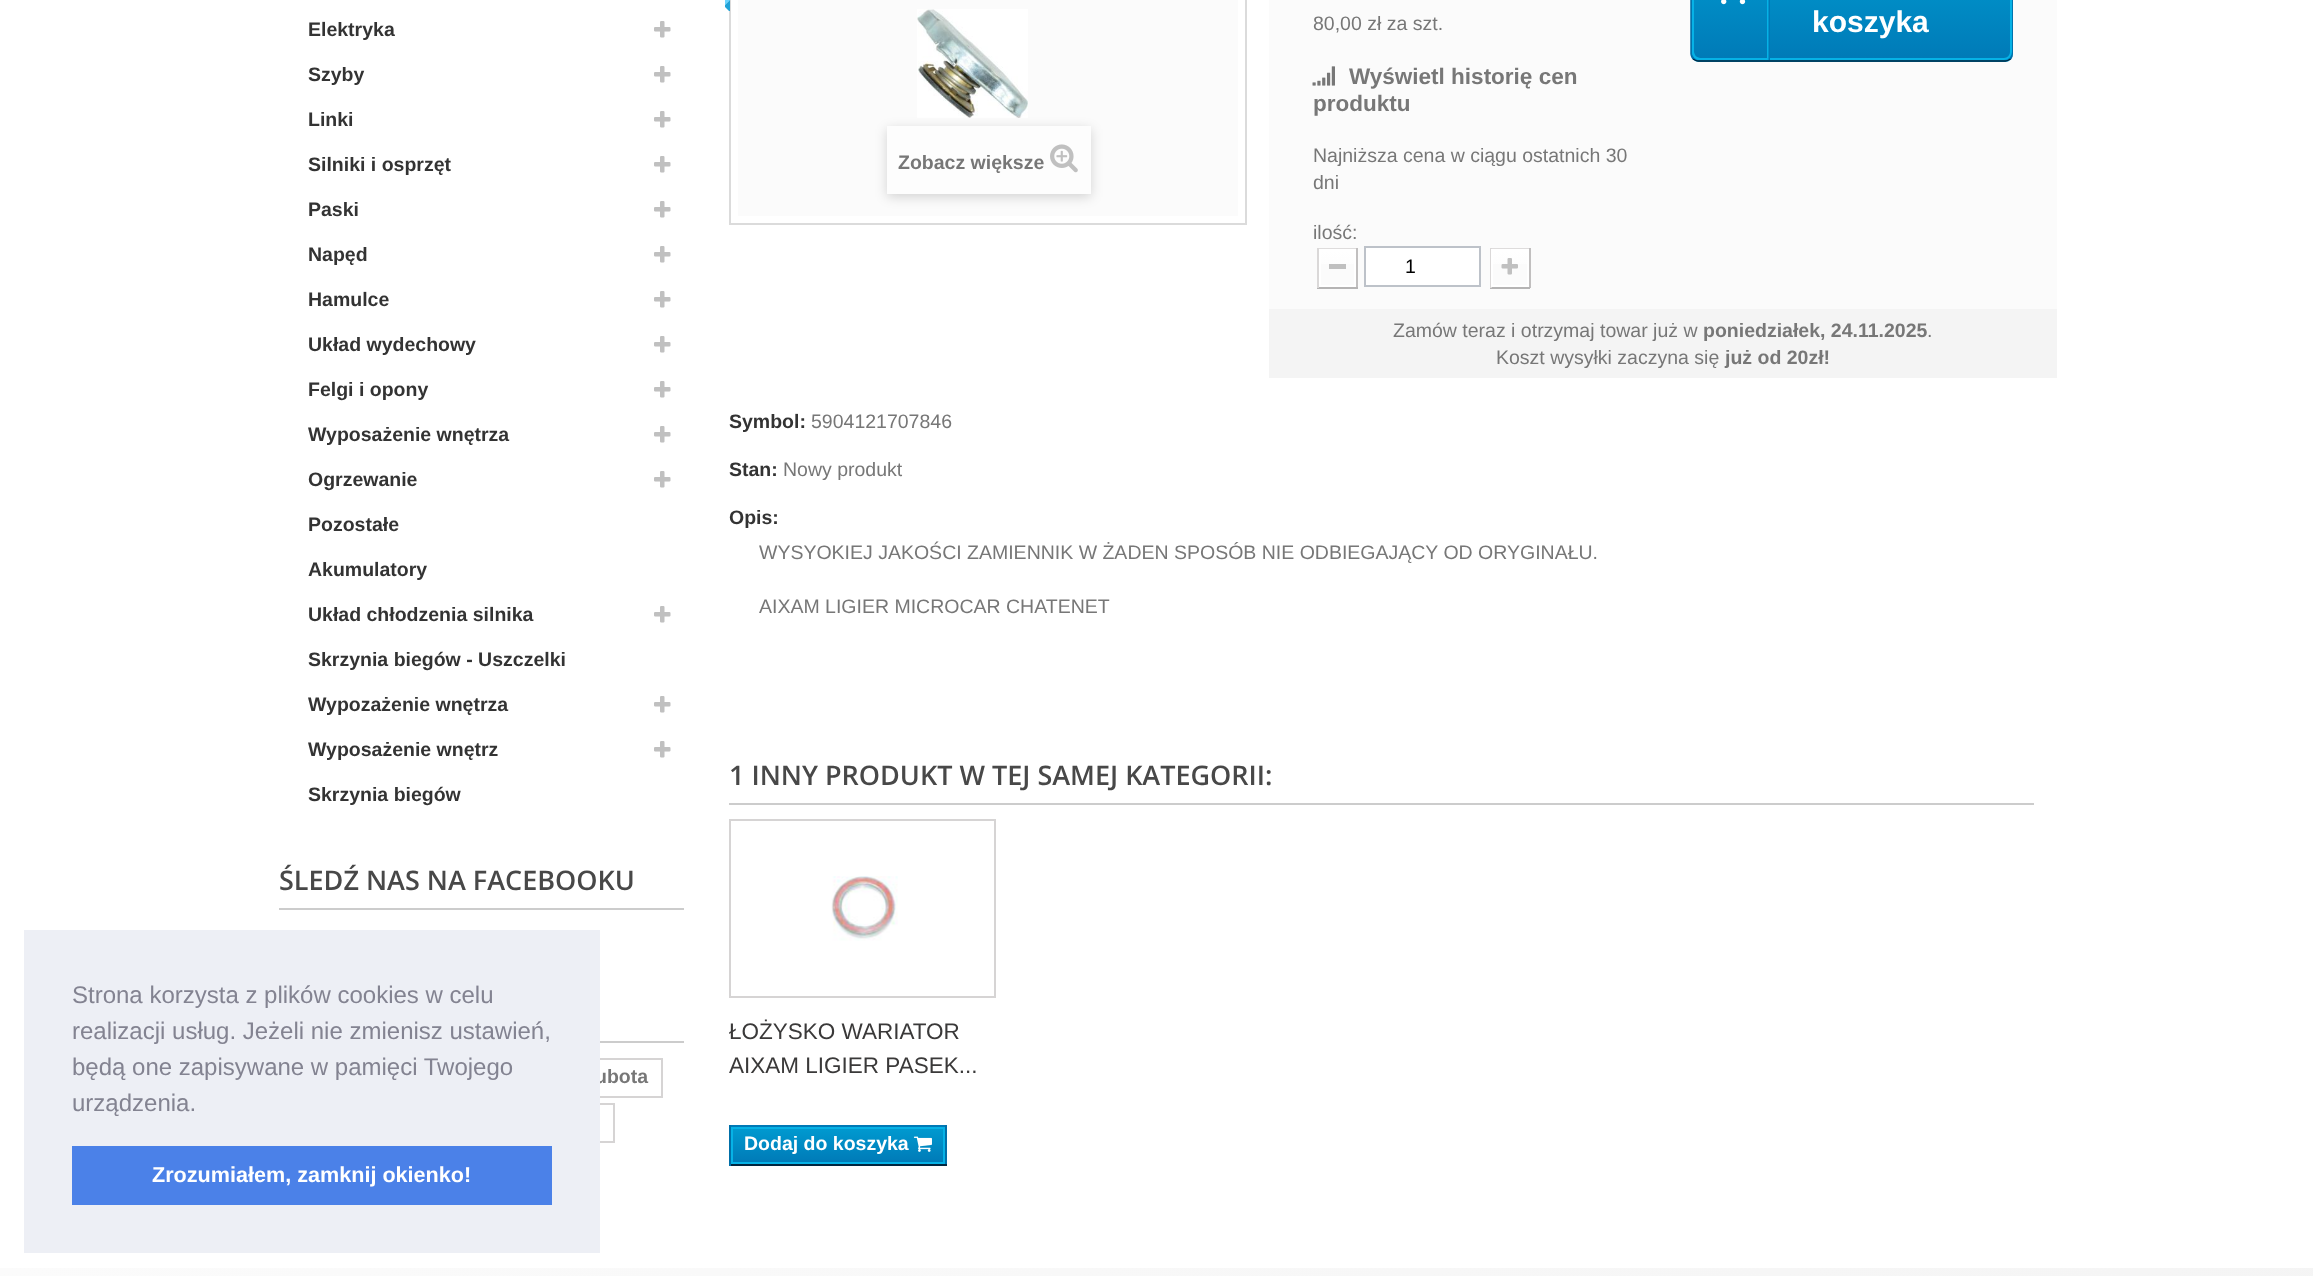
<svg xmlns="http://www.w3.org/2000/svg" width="2313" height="1276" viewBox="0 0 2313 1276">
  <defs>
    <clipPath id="clip1"><path d="M725 0h127v11H725z"/></clipPath>
    <clipPath id="clip2"><path d="M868 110H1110V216H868ZM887 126H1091V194H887Z" clip-rule="evenodd"/></clipPath>
    <linearGradient id="g1" gradientUnits="userSpaceOnUse" x1="1337" y1="251" x2="1337" y2="285"><stop offset="0" stop-color="#fff"/><stop offset="1" stop-color="#fbfbfb"/></linearGradient>
    <linearGradient id="g2" gradientUnits="userSpaceOnUse" x1="1510" y1="251" x2="1510" y2="285"><stop offset="0" stop-color="#fff"/><stop offset="1" stop-color="#fbfbfb"/></linearGradient>
    <clipPath id="clip3"><rect x="1691" y="-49" width="322" height="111" rx="8"/></clipPath>
    <linearGradient id="g3" gradientUnits="userSpaceOnUse" x1="1852" y1="-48" x2="1852" y2="60"><stop offset="0" stop-color="#009ad0"/><stop offset="1" stop-color="#007ab7"/></linearGradient>
    <linearGradient id="g4" gradientUnits="userSpaceOnUse" x1="1852" y1="60" x2="1852" y2="168"><stop offset="0" stop-color="#009ad0"/><stop offset="1" stop-color="#007ab7"/></linearGradient>
    <linearGradient id="g5" gradientUnits="userSpaceOnUse" x1="838" y1="1128" x2="838" y2="1163"><stop offset="0" stop-color="#009ad0"/><stop offset="1" stop-color="#007ab7"/></linearGradient>
    <linearGradient id="g6" gradientUnits="userSpaceOnUse" x1="1746" y1="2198" x2="567" y2="792"><stop offset="0" stop-color="#f3f3f3"/><stop offset="1" stop-color="#fbfbfb"/></linearGradient>
  </defs>
  <rect width="100%" height="100%" fill="#fff"/>
  <image x="654" y="21" width="17" height="17" href="img/1.png"/>
  <image x="654" y="66" width="17" height="17" href="img/1.png"/>
  <image x="654" y="111" width="17" height="17" href="img/1.png"/>
  <image x="654" y="156" width="17" height="17" href="img/1.png"/>
  <image x="654" y="201" width="17" height="17" href="img/1.png"/>
  <image x="654" y="246" width="17" height="17" href="img/1.png"/>
  <image x="654" y="291" width="17" height="17" href="img/1.png"/>
  <image x="654" y="336" width="17" height="17" href="img/1.png"/>
  <image x="654" y="381" width="17" height="17" href="img/1.png"/>
  <image x="654" y="426" width="17" height="17" href="img/1.png"/>
  <image x="654" y="471" width="17" height="17" href="img/1.png"/>
  <image x="654" y="606" width="17" height="17" href="img/1.png"/>
  <image x="654" y="696" width="17" height="17" href="img/1.png"/>
  <image x="654" y="741" width="17" height="17" href="img/1.png"/>
  <path d="M279 908h405v2H279z" fill="#ccc"/>
  <path d="M600 1041h84v2H600z" fill="#ccc"/>
  <path d="M571 1059h91v38H571z" fill="none" stroke="#d6d4d4" stroke-width="2"/>
  <path d="M447 1104h167v38H447z" fill="none" stroke="#d6d4d4" stroke-width="2"/>
  <path d="M730 -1h516v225H730z" fill="none" stroke="#dbdbdb" stroke-width="2"/>
  <g clip-path="url(#clip1)">
    <path d="M689-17L827-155L856-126L718 12Z" fill="#6ad4ff"/>
    <path d="M730 0V12L724 6Z" fill="#21a3d8"/>
  </g>
  <path d="M738 0h500v216H738z" fill="#fbfbfb"/>
  <image x="917" y="9" width="111" height="109" href="img/2.png"/>
  <g clip-path="url(#clip2)">
    <path d="M887 129h204v68H887z" fill="#00000029" filter="blur(6px)"/>
  </g>
  <path d="M887 126h204v68H887z" fill="#ffffff80"/>
  <image x="1050" y="144" width="28" height="29" href="img/3.png"/>
  <path d="M1269 0h788v309H1269z" fill="#fbfbfb"/>
  <image x="1312" y="66" width="23" height="20" href="img/4.png"/>
  <path d="M1317 248h41v1H1317z" fill="#dedcdc"/>
  <path d="M1356 248h2v40H1356z" fill="#c1bfbf"/>
  <path d="M1317 287h41v2H1317z" fill="#b5b4b4"/>
  <path d="M1317 248h2v40H1317z" fill="#dad8d8"/>
  <path d="M1321 251h33v13H1321z" fill="url(#g1)"/>
  <path d="M1320 250h35v36H1320z" fill="none" stroke="#fff" stroke-width="2"/>
  <path d="M1329 264h17v5H1329z" fill="#c0c0c0"/>
  <path d="M1365 247h115v39H1365z" fill="#fff" stroke="#bdc2c9" stroke-width="2"/>
  <path d="M1490 248h40v1H1490z" fill="#dedcdc"/>
  <path d="M1529 248h2v40H1529z" fill="#c1bfbf"/>
  <path d="M1490 287h40v2H1490z" fill="#b5b4b4"/>
  <path d="M1490 248h2v40H1490z" fill="#dad8d8"/>
  <path d="M1493 251h34v13H1493z" fill="url(#g2)"/>
  <path d="M1492 250h36v36H1492z" fill="none" stroke="#fff" stroke-width="2"/>
  <image x="1501" y="258" width="17" height="17" href="img/5.png"/>
  <g clip-path="url(#clip3)">
    <path d="M1691 0h322v60H1691z" fill="url(#g3)"/>
    <path d="M1691 60h322v2H1691z" fill="url(#g4)"/>
  </g>
  <path d="M2010.5-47C2011.5-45.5 2012-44 2012-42V54C2012 56 2011.5 57.5 2010.5 59" fill="none" stroke="#006fa8" stroke-width="1.5"/>
  <path d="M2010.5 59C2009 60 2007.5 61 2005.5 61H1698C1696 61 1694.5 60 1693 59" fill="none" stroke="#012740" stroke-width="1.5"/>
  <path d="M1693 59C1692 57.5 1691 56 1691 54V-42C1691-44 1692-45.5 1693-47" fill="none" stroke="#006fa8" stroke-width="1.5"/>
  <rect x="1693" y="-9" width="318" height="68" rx="7" fill="none" stroke="#06b2e6" stroke-width="2"/>
  <path d="M1700-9H1768V59H1700C1696 59 1693 56 1693 52V-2C1693-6 1696-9 1700-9Z" fill="none" stroke="#06b2e6" stroke-width="2"/>
  <image x="1721" y="0" width="25" height="5" href="img/6.png"/>
  <image x="1768" y="0" width="2" height="60" href="img/7.png"/>
  <path d="M1269 309h788v69H1269z" fill="#f4f4f4"/>
  <path d="M729 803h1305v2H729z" fill="#ccc"/>
  <path d="M730 820h265v177H730z" fill="none" stroke="#d6d4d4" stroke-width="2"/>
  <image x="831" y="876" width="67" height="65" href="img/8.png"/>
  <path d="M729 1125h218v2H729z" fill="#0079b6"/>
  <path d="M945 1125h2v41H945z" fill="#006fa8"/>
  <path d="M729 1164h218v2H729z" fill="#012740"/>
  <path d="M729 1125h2v41H729z" fill="#006fa8"/>
  <path d="M733 1129h210v33H733z" fill="url(#g5)"/>
  <path d="M732 1128h212v35H732z" fill="none" stroke="#06b2e6" stroke-width="2"/>
  <image x="913" y="1136" width="19" height="16" href="img/9.png"/>
  <path d="M0 1268h2313v8H0z" fill="url(#g6)"/>
  <g font-family="Liberation Sans" font-size="19.5" font-weight="bold" fill="#333">
    <text x="308" y="36">Elektryka</text>
    <text x="308" y="81">Szyby</text>
    <text x="308" y="126">Linki</text>
    <text x="308" y="171">Silniki i osprzęt</text>
    <text x="308" y="216">Paski</text>
    <text x="308" y="261">Napęd</text>
    <text x="308" y="306">Hamulce</text>
    <text x="308" y="351">Układ wydechowy</text>
    <text x="308" y="396">Felgi i opony</text>
    <text x="308" y="441">Wyposażenie wnętrza</text>
    <text x="308" y="486">Ogrzewanie</text>
    <text x="308" y="531">Pozostałe</text>
    <text x="308" y="576">Akumulatory</text>
    <text x="308" y="621">Układ chłodzenia silnika</text>
    <text x="308" y="666">Skrzynia biegów - Uszczelki</text>
    <text x="308" y="711">Wypozażenie wnętrza</text>
    <text x="308" y="756">Wyposażenie wnętrz</text>
    <text x="308" y="801">Skrzynia biegów</text>
  </g>
  <text x="279" y="890" font-family="Open Sans" font-size="27" font-weight="600" fill="#484848">ŚLEDŹ NAS NA FACEBOOKU</text>
  <g font-family="Liberation Sans" font-size="19.5" font-weight="bold" fill="#777">
    <text x="595" y="1083">ubota</text>
    <text x="898" y="169">Zobacz większe</text>
  </g>
  <text x="1313" y="30" font-family="Liberation Sans" font-size="19.5" fill="#777">80,00 zł za szt.</text>
  <g font-family="Liberation Sans" font-size="22.5" font-weight="bold" fill="#777">
    <text x="1349" y="84">Wyświetl historię cen</text>
    <text x="1313" y="111">produktu</text>
  </g>
  <g font-family="Liberation Sans" font-size="19.5" fill="#777">
    <text x="1313" y="162">Najniższa cena w ciągu ostatnich 30</text>
    <text x="1313" y="189">dni</text>
    <text x="1313" y="239">ilość:</text>
  </g>
  <text x="1405" y="273" font-family="Liberation Sans" font-size="19.5" fill="#000">1</text>
  <text x="1812" y="32" font-family="Liberation Sans" font-size="30" font-weight="bold" fill="#fff">koszyka</text>
  <text x="1393" y="337" font-family="Liberation Sans" font-size="19.5" fill="#777">Zamów teraz i otrzymaj towar już w</text>
  <text x="1703" y="337" font-family="Liberation Sans" font-size="19.5" font-weight="bold" fill="#777">poniedziałek, 24.11.2025</text>
  <g font-family="Liberation Sans" font-size="19.5" fill="#777">
    <text x="1927" y="337">.</text>
    <text x="1496" y="364">Koszt wysyłki zaczyna się</text>
  </g>
  <text x="1725" y="364" font-family="Liberation Sans" font-size="19.5" font-weight="bold" fill="#777">już od 20zł!</text>
  <text x="729" y="428" font-family="Liberation Sans" font-size="19.5" font-weight="bold" fill="#333">Symbol:</text>
  <text x="811" y="428" font-family="Liberation Sans" font-size="19.5" fill="#777">5904121707846</text>
  <text x="729" y="476" font-family="Liberation Sans" font-size="19.5" font-weight="bold" fill="#333">Stan:</text>
  <text x="783" y="476" font-family="Liberation Sans" font-size="19.5" fill="#777">Nowy produkt</text>
  <text x="729" y="524" font-family="Liberation Sans" font-size="19.5" font-weight="bold" fill="#333">Opis:</text>
  <g font-family="Liberation Sans" font-size="19.5" fill="#777">
    <text x="759" y="559">WYSYOKIEJ JAKOŚCI ZAMIENNIK W ŻADEN SPOSÓB NIE ODBIEGAJĄCY OD ORYGINAŁU.</text>
    <text x="759" y="613">AIXAM LIGIER MICROCAR CHATENET</text>
  </g>
  <text x="729" y="785" font-family="Open Sans" font-size="27" font-weight="600" fill="#484848">1 INNY PRODUKT W TEJ SAMEJ KATEGORII:</text>
  <g font-family="Liberation Sans" font-size="22.5" fill="#3a3939">
    <text x="729" y="1039">ŁOŻYSKO WARIATOR</text>
    <text x="729" y="1073">AIXAM LIGIER PASEK...</text>
  </g>
  <text x="744" y="1150" font-family="Liberation Sans" font-size="19.5" font-weight="bold" fill="#fff">Dodaj do koszyka</text>
  <path d="M24 930h576v323H24z" fill="#edeff5"/>
  <g font-family="Liberation Sans" font-size="24" fill="#838391">
    <text x="72" y="1003">Strona korzysta z plików cookies w celu</text>
    <text x="72" y="1039">realizacji usług. Jeżeli nie zmienisz ustawień,</text>
    <text x="72" y="1075">będą one zapisywane w pamięci Twojego</text>
    <text x="72" y="1111">urządzenia.</text>
  </g>
  <path d="M72 1146h480v59H72z" fill="#4b81e8"/>
  <text x="152" y="1182" font-family="Liberation Sans" font-size="21.6" font-weight="bold" fill="#fff">Zrozumiałem, zamknij okienko!</text>
</svg>
